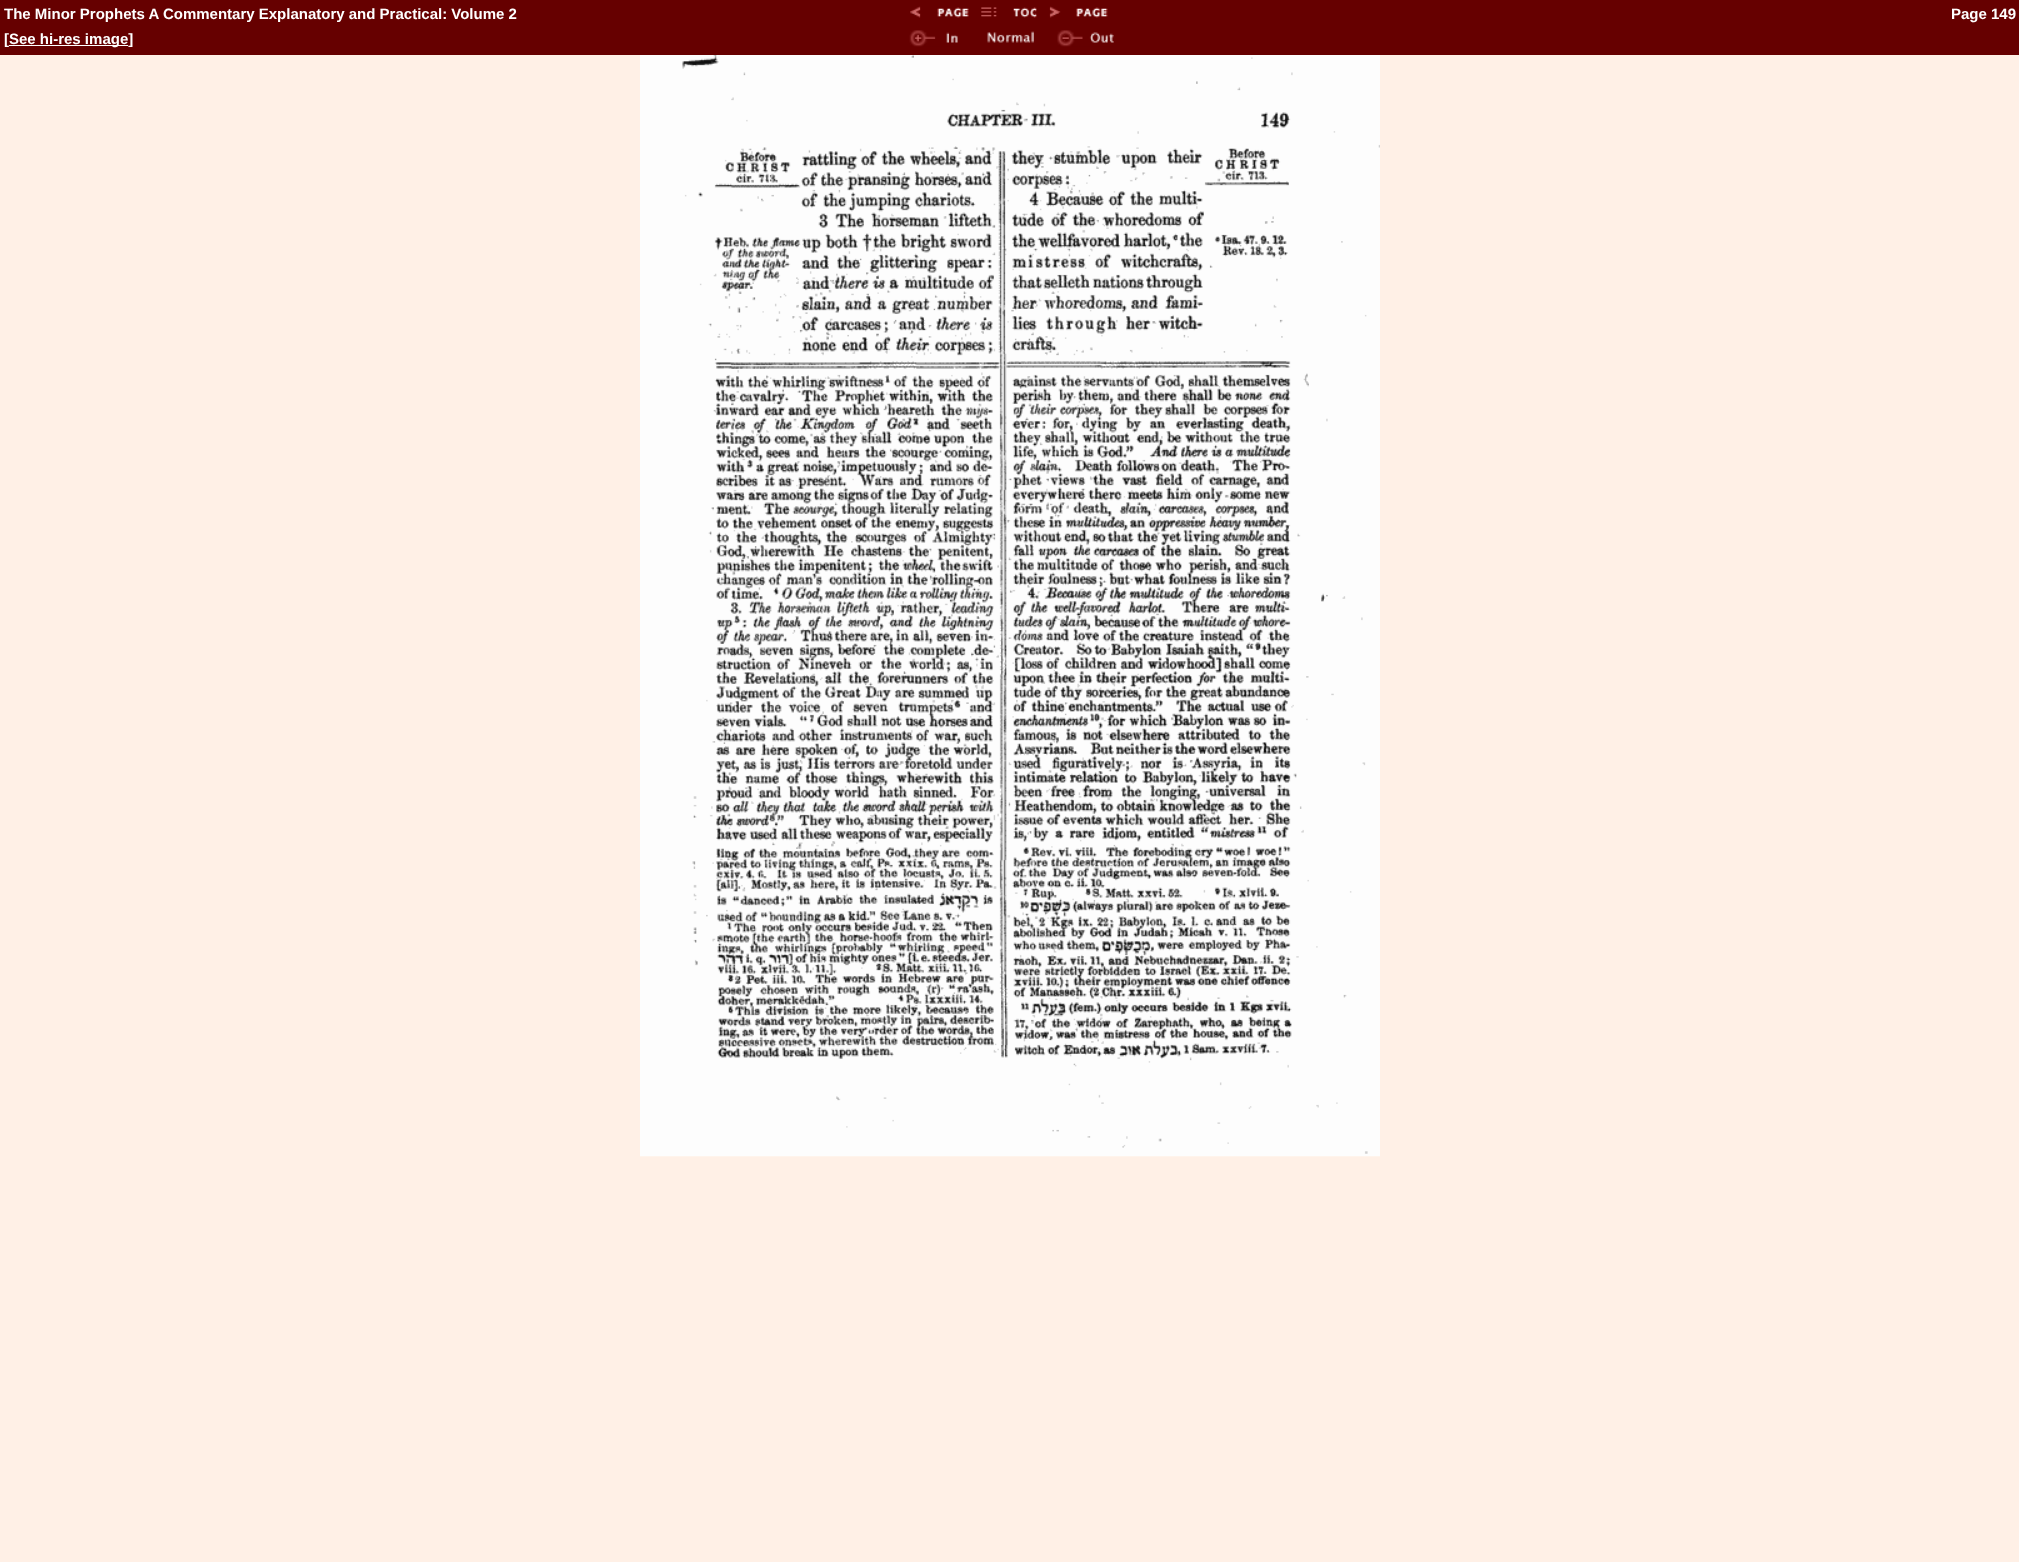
<svg xmlns="http://www.w3.org/2000/svg" width="2019" height="1562" viewBox="0 0 2019 1562">
  <rect width="100%" height="100%" fill="#fff0e6"/>
  <path d="M0 0h2019v55H0z" fill="#600"/>
  <image x="910" y="6" width="59" height="12" href="img/1.png"/>
  <image x="981" y="7" width="56" height="11" href="img/2.png"/>
  <image x="1049" y="6" width="59" height="12" href="img/3.png"/>
  <path d="M9 45h119v1H9z" fill="#fff"/>
  <image x="909" y="30" width="49" height="17" href="img/4.png"/>
  <image x="987" y="31" width="47" height="12" href="img/5.png"/>
  <image x="1057" y="30" width="57" height="17" href="img/6.png"/>
  <image x="640" y="55" width="740" height="1102" href="img/7.png"/>
  <g font-family="Liberation Sans" font-size="15" font-weight="bold" fill="#fff">
    <text x="4" y="19">The Minor Prophets A Commentary Explanatory and Practical: Volume 2</text>
    <text x="1951" y="19">Page 149</text>
    <text x="4" y="44">[</text>
    <text x="9" y="44">See hi-res image]</text>
  </g>
</svg>
